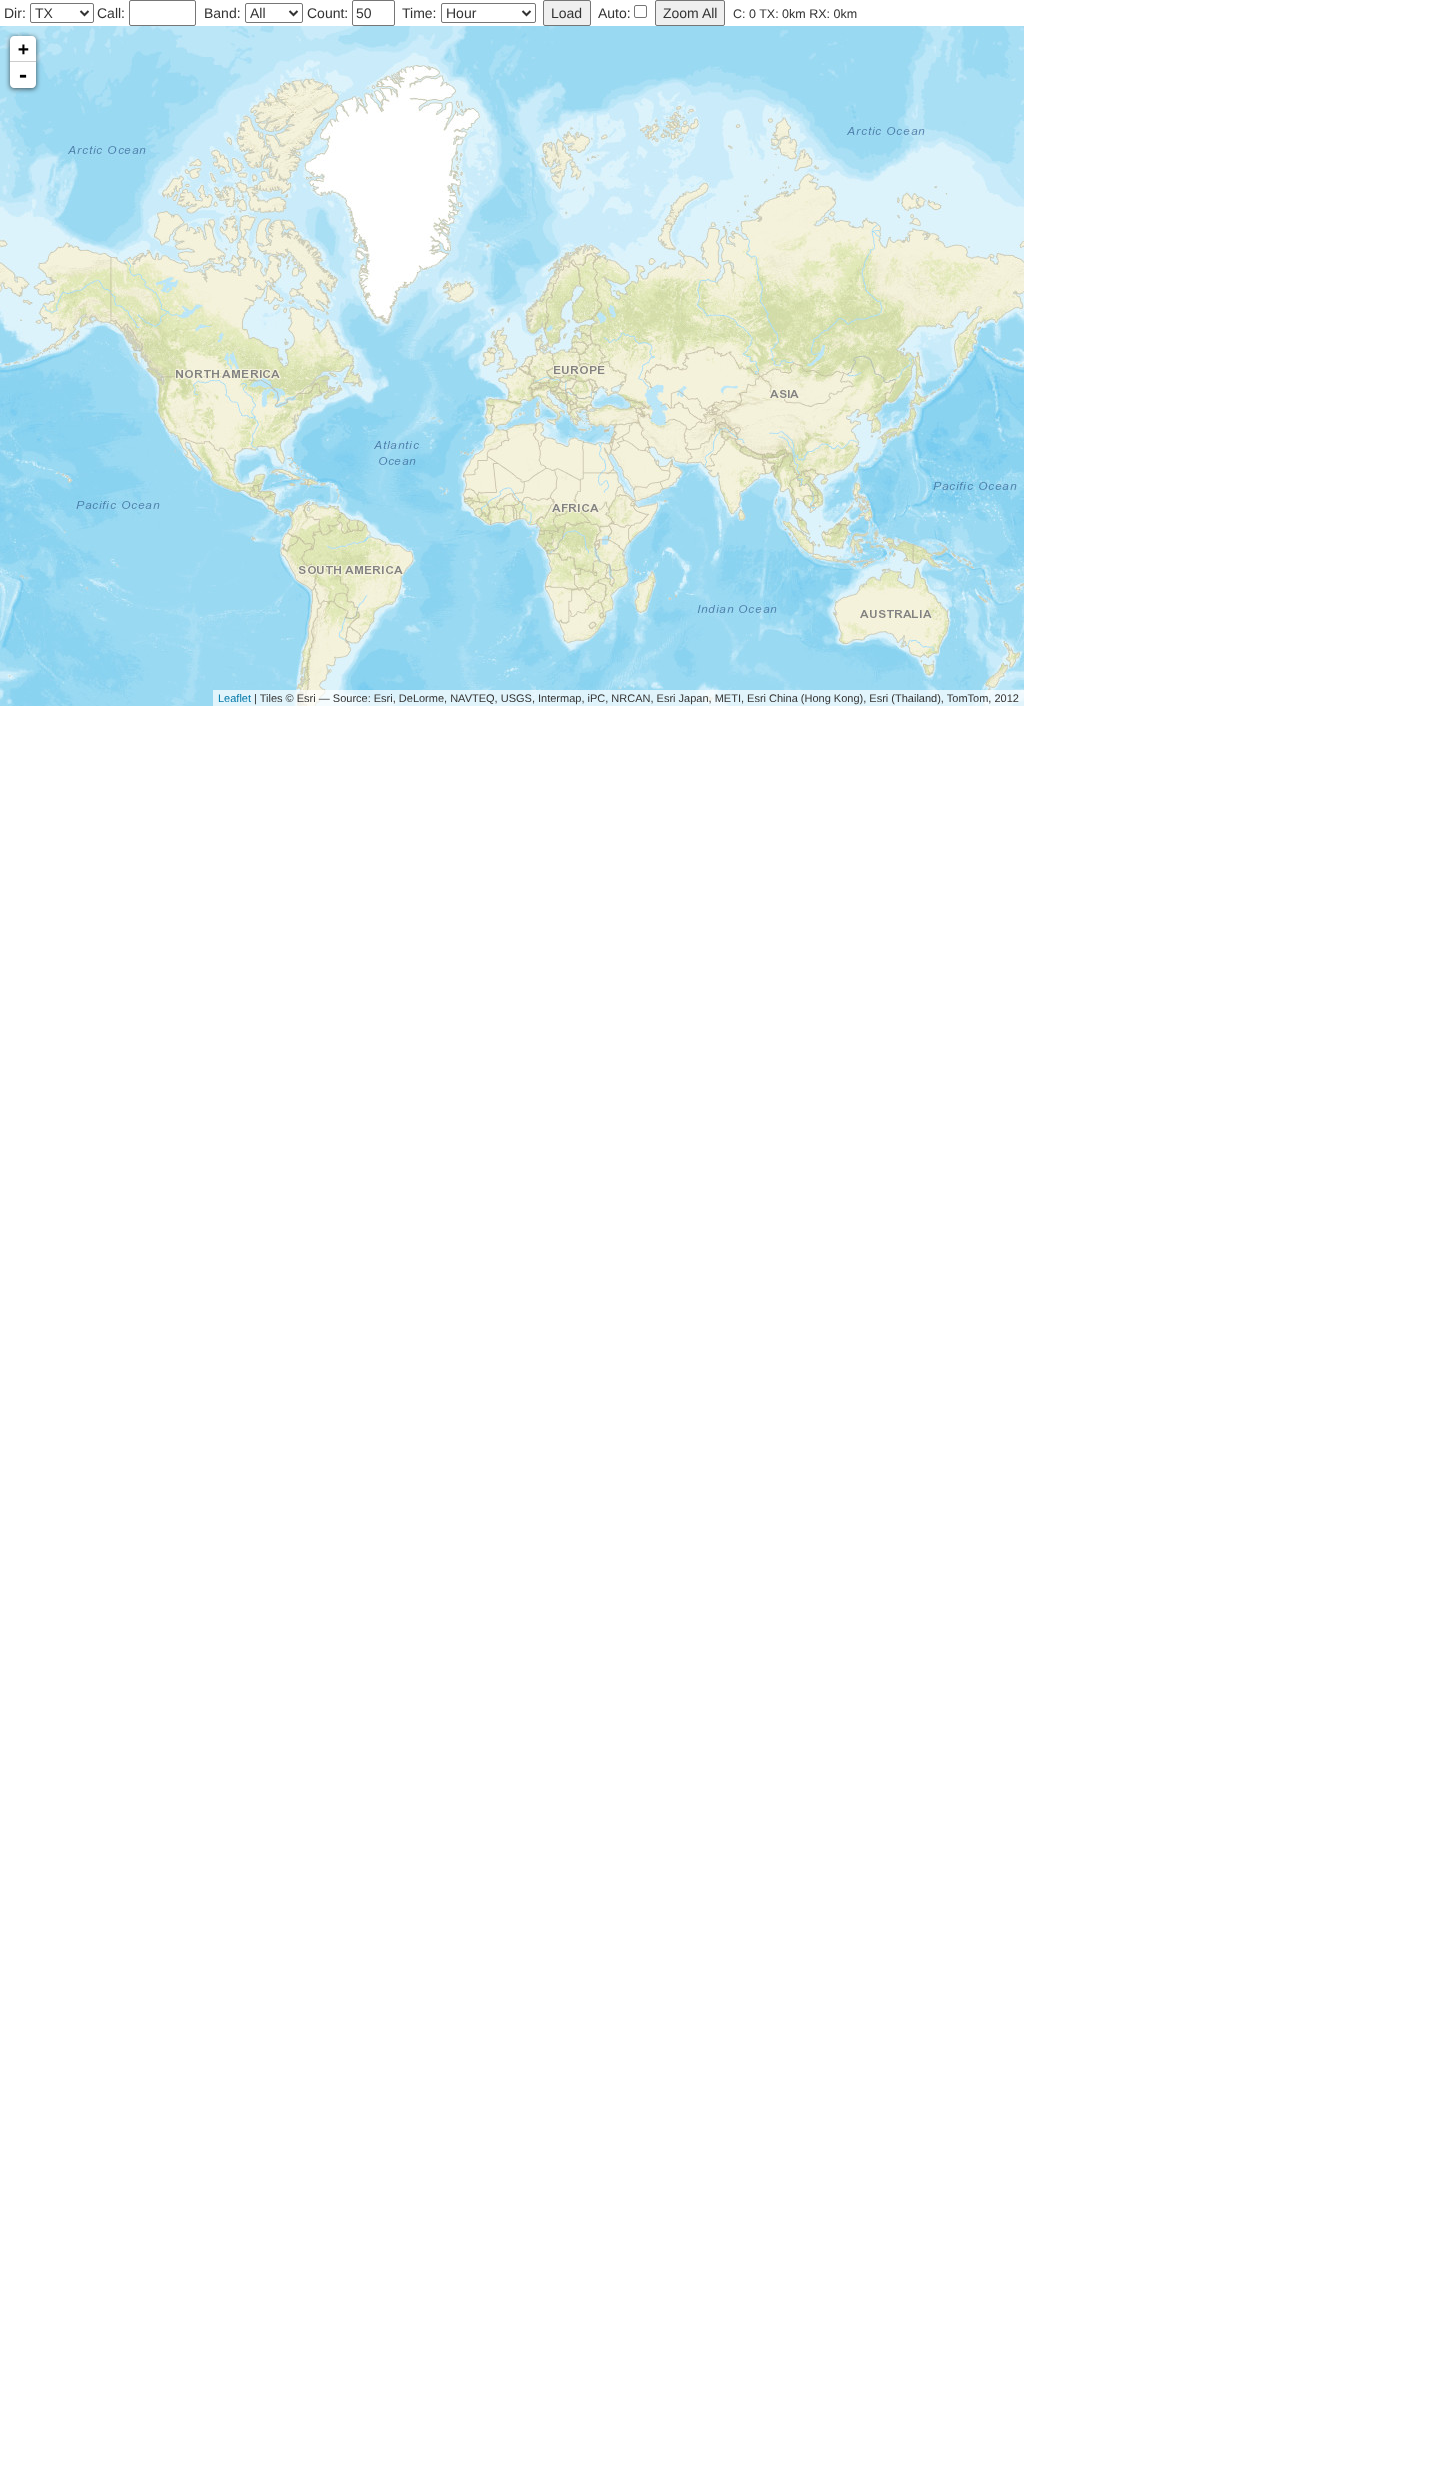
<svg xmlns="http://www.w3.org/2000/svg" width="1456" height="2477" viewBox="0 0 1456 2477">
  <rect width="100%" height="100%" fill="#fff"/>
  <rect x="30.5" y="3.5" width="63" height="19" rx="1.5" fill="none" stroke="#767676"/>
  <path d="M80.5 11L84.5 15L88.5 11" fill="none" stroke="#333" stroke-width="2"/>
  <rect x="129.5" y="0.5" width="66" height="25" rx="1.5" fill="none" stroke="#767676"/>
  <rect x="245.5" y="3.5" width="57" height="19" rx="1.5" fill="none" stroke="#767676"/>
  <path d="M289.5 11L293.5 15L297.5 11" fill="none" stroke="#333" stroke-width="2"/>
  <rect x="352.5" y="0.5" width="42" height="25" rx="1.5" fill="none" stroke="#767676"/>
  <rect x="441.5" y="3.5" width="94" height="19" rx="1.5" fill="none" stroke="#767676"/>
  <path d="M522.5 11L526.5 15L530.5 11" fill="none" stroke="#333" stroke-width="2"/>
  <rect x="543.5" y="0.5" width="47" height="25" rx="1.5" fill="#efefef" stroke="#767676"/>
  <rect x="634.5" y="5.5" width="12" height="12" rx="1.5" fill="none" stroke="#767676"/>
  <rect x="655.5" y="0.5" width="69" height="25" rx="1.5" fill="#efefef" stroke="#767676"/>
  <image x="0" y="26" width="256" height="255" href="img/1.png"/>
  <image x="256" y="26" width="256" height="255" href="img/2.png"/>
  <image x="512" y="26" width="256" height="255" href="img/3.png"/>
  <image x="768" y="26" width="256" height="255" href="img/4.png"/>
  <image x="0" y="281" width="256" height="256" href="img/5.png"/>
  <image x="256" y="281" width="256" height="256" href="img/6.png"/>
  <image x="512" y="281" width="256" height="256" href="img/7.png"/>
  <image x="768" y="281" width="256" height="256" href="img/8.png"/>
  <image x="0" y="537" width="256" height="169" href="img/9.png"/>
  <image x="256" y="537" width="256" height="169" href="img/10.png"/>
  <image x="512" y="537" width="256" height="169" href="img/11.png"/>
  <image x="768" y="537" width="256" height="169" href="img/12.png"/>
  <rect x="10" y="37" width="26" height="52" rx="4" fill="#000000a6" filter="blur(2.5px)"/>
  <path d="M14 36H32C34 36 36 38 36 40V62H10V40C10 38 12 36 14 36Z" fill="#fff"/>
  <path d="M10 61h26v1H10z" fill="#ccc"/>
  <path d="M10 62H36V84C36 86 34 88 32 88H14C12 88 10 86 10 84Z" fill="#fff"/>
  <path d="M213 690h811v16H213z" fill="#ffffffb3"/>
  <g font-family="Liberation Sans" font-size="14" fill="#333">
    <text x="4" y="18">Dir:</text>
    <text x="35" y="18">TX</text>
    <text x="97" y="18">Call:</text>
    <text x="204" y="18">Band:</text>
    <text x="250" y="18">All</text>
    <text x="307" y="18">Count:</text>
    <text x="356" y="18">50</text>
    <text x="402" y="18">Time:</text>
    <text x="446" y="18">Hour</text>
    <text x="551" y="18">Load</text>
    <text x="598" y="18">Auto:</text>
    <text x="663" y="18">Zoom All</text>
  </g>
  <text x="733" y="18" font-family="Liberation Sans" font-size="12.5" fill="#333">C: 0 TX: 0km RX: 0km</text>
  <text x="18" y="55" font-family="DejaVu Sans Mono" font-size="18" font-weight="bold" fill="#000">+</text>
  <text x="17" y="82" font-family="DejaVu Sans Mono" font-size="20" font-weight="bold" fill="#000">-</text>
  <text x="218" y="702" font-family="Liberation Sans" font-size="11" fill="#0078a8">Leaflet</text>
  <text x="254" y="702" font-family="Liberation Sans" font-size="11" fill="#333">| Tiles © Esri — Source: Esri, DeLorme, NAVTEQ, USGS, Intermap, iPC, NRCAN, Esri Japan, METI, Esri China (Hong Kong), Esri (Thailand), TomTom, 2012</text>
</svg>
